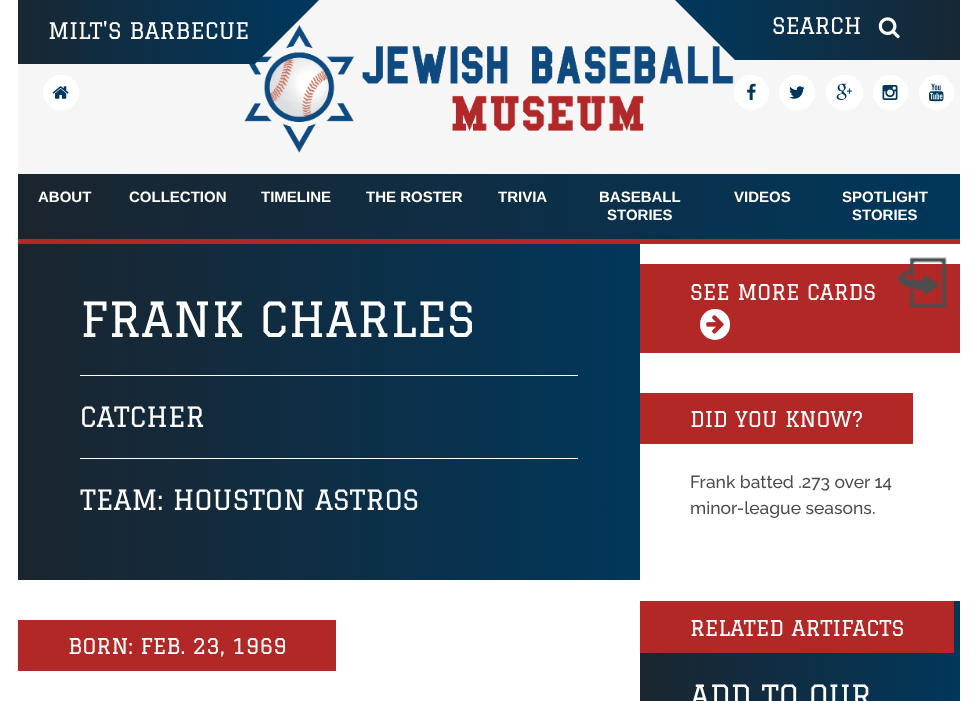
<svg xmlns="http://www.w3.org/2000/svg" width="977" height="701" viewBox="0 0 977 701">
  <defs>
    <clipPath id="clip1"><path d="M18 0h301v64H18z"/></clipPath>
    <linearGradient id="g1" gradientUnits="userSpaceOnUse" x1="-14" y1="32" x2="287" y2="32"><stop offset="0" stop-color="#1b252f"/><stop offset="1" stop-color="#01375b"/></linearGradient>
    <clipPath id="clip2"><path d="M659 0h301v60H659z"/></clipPath>
    <linearGradient id="g2" gradientUnits="userSpaceOnUse" x1="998" y1="22" x2="697" y2="22"><stop offset="0" stop-color="#1b252f"/><stop offset="1" stop-color="#01375b"/></linearGradient>
    <linearGradient id="g3" gradientUnits="userSpaceOnUse" x1="18" y1="206" x2="960" y2="206"><stop offset="0" stop-color="#1b252f"/><stop offset="1" stop-color="#01375b"/></linearGradient>
    <linearGradient id="g4" gradientUnits="userSpaceOnUse" x1="18" y1="412" x2="640" y2="412"><stop offset="0" stop-color="#1b252f"/><stop offset="1" stop-color="#01375b"/></linearGradient>
    <linearGradient id="g5" gradientUnits="userSpaceOnUse" x1="640" y1="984" x2="960" y2="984"><stop offset="0" stop-color="#1b252f"/><stop offset="1" stop-color="#01375b"/></linearGradient>
  </defs>
  <rect width="100%" height="100%" fill="#fff"/>
  <path d="M18 0h942v174H18z" fill="#f6f6f6"/>
  <image x="244" y="25" width="490" height="128" href="img/1.png"/>
  <g clip-path="url(#clip1)">
    <path d="M18 0H319L255 64H-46Z" fill="url(#g1)"/>
  </g>
  <g clip-path="url(#clip2)">
    <path d="M659-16H960L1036 60H735Z" fill="url(#g2)"/>
  </g>
  <image x="878" y="17" width="22" height="22" href="img/2.png"/>
  <rect x="43" y="75" width="36" height="35" rx="17.5" fill="#fff"/>
  <image x="52" y="86" width="17" height="13" href="img/3.png"/>
  <circle cx="751.5" cy="92.5" r="17.5" fill="#fff"/>
  <image x="747" y="83" width="9" height="17" href="img/4.png"/>
  <rect x="779" y="75" width="36" height="35" rx="17.5" fill="#fff"/>
  <image x="789" y="86" width="16" height="13" href="img/5.png"/>
  <rect x="826" y="75" width="37" height="35" rx="17.5" fill="#fff"/>
  <image x="836" y="83" width="16" height="17" href="img/6.png"/>
  <circle cx="890.5" cy="92.5" r="17.5" fill="#fff"/>
  <image x="882" y="85" width="16" height="15" href="img/7.png"/>
  <circle cx="936.5" cy="92.5" r="17.5" fill="#fff"/>
  <image x="929" y="83" width="15" height="19" href="img/8.png"/>
  <path d="M18 239h942v5H18z" fill="#b12827"/>
  <path d="M18 174h942v65H18z" fill="url(#g3)"/>
  <path d="M18 244h622v336H18z" fill="url(#g4)"/>
  <path d="M80 375h498v1H80z" fill="#fff"/>
  <path d="M80 458h498v1H80z" fill="#fff"/>
  <path d="M18 620h318v51H18z" fill="#b12827"/>
  <path d="M640 264h320v89H640z" fill="#b12827"/>
  <rect x="700" y="309" width="30" height="31" rx="15" fill="#fff"/>
  <image x="706" y="315" width="18" height="19" href="img/9.png"/>
  <image x="897" y="257" width="50" height="51" href="img/10.png"/>
  <path d="M640 393h273v51H640z" fill="#b12827"/>
  <path d="M640 601h320v100H640z" fill="url(#g5)"/>
  <path d="M640 601h314v52H640z" fill="#b12827"/>
  <g font-family="Graduate" font-size="22.5" fill="#fff">
    <text x="48" y="39">MILT'S BARBECUE</text>
    <text x="772" y="34">SEARCH</text>
  </g>
  <g font-family="Liberation Sans" font-size="15" font-weight="bold" fill="#fff">
    <text x="38" y="202">ABOUT</text>
    <text x="129" y="202">COLLECTION</text>
    <text x="261" y="202">TIMELINE</text>
    <text x="366" y="202">THE ROSTER</text>
    <text x="498" y="202">TRIVIA</text>
    <text x="599" y="202">BASEBALL</text>
    <text x="607" y="220">STORIES</text>
    <text x="734" y="202">VIDEOS</text>
    <text x="842" y="202">SPOTLIGHT</text>
    <text x="852" y="220">STORIES</text>
  </g>
  <text x="80" y="337" font-family="Graduate" font-size="47.5" fill="#fff">FRANK CHARLES</text>
  <g font-family="Graduate" font-size="27.5" fill="#fff">
    <text x="80" y="427">CATCHER</text>
    <text x="80" y="510">TEAM: HOUSTON ASTROS</text>
  </g>
  <g font-family="Graduate" font-size="21.25" fill="#fff">
    <text x="68" y="654">BORN: FEB. 23, 1969</text>
    <text x="690" y="300">SEE MORE CARDS</text>
    <text x="690" y="427">DID YOU KNOW?</text>
  </g>
  <g font-family="Raleway" font-size="17.5" font-weight="500" fill="#4b4d4d">
    <text x="690" y="488">Frank batted .273 over 14</text>
    <text x="690" y="514">minor-league seasons.</text>
  </g>
  <text x="690" y="636" font-family="Graduate" font-size="21.25" fill="#fff">RELATED ARTIFACTS</text>
  <text x="690" y="707" font-family="Graduate" font-size="30" fill="#fff">ADD TO OUR</text>
</svg>
